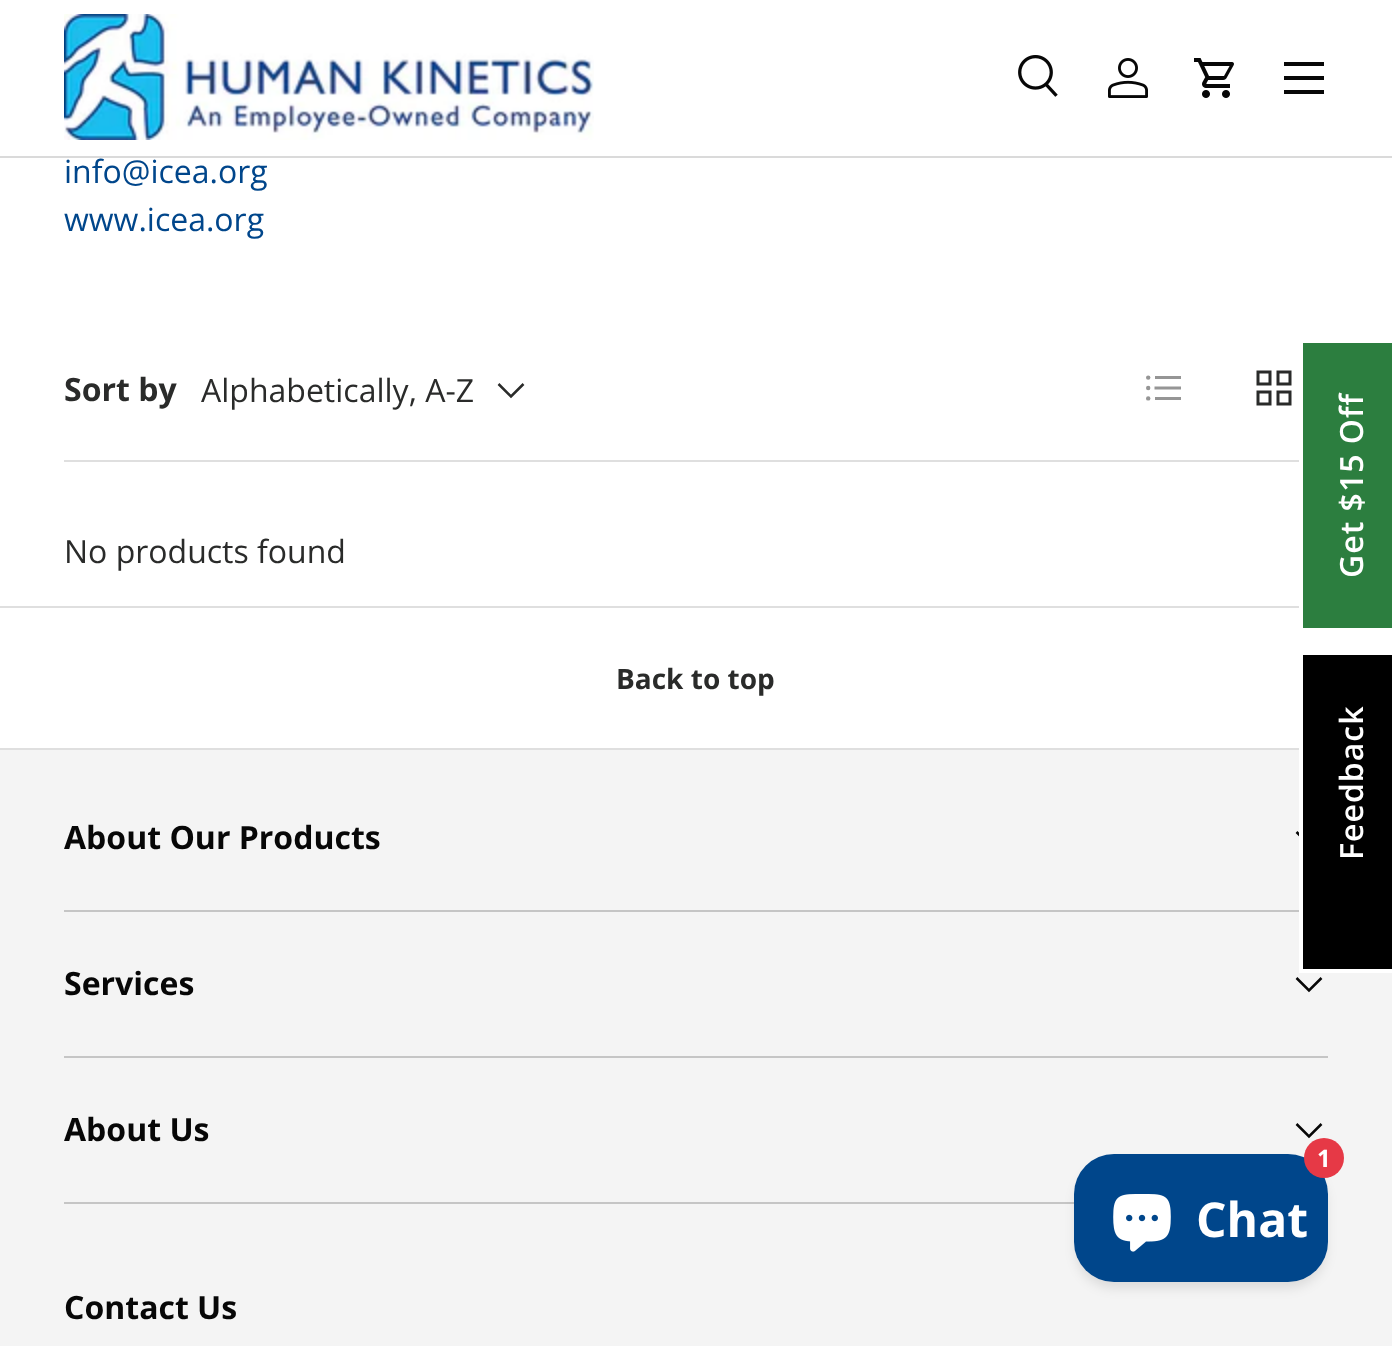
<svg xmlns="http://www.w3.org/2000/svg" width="1392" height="1346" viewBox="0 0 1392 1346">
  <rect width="100%" height="100%" fill="#fff"/>
  <path d="M0 156h1392v2H0z" fill="#dadada"/>
  <image x="64" y="14" width="530" height="126" href="img/1.png"/>
  <image x="1018" y="55" width="40" height="42" href="img/2.png"/>
  <image x="1108" y="58" width="40" height="40" href="img/3.png"/>
  <image x="1194" y="58" width="40" height="40" href="img/4.png"/>
  <path d="M1284 62h40v4H1284z" fill="#070707"/>
  <path d="M1284 90h40v4H1284z" fill="#070707"/>
  <path d="M1284 76h40v4H1284z" fill="#070707"/>
  <path d="M64 460h1235v2H64z" fill="#dfdfdf"/>
  <path d="M523.5 384L511 396.5L498.5 384" fill="none" stroke="#2a2b2a" stroke-width="2.5"/>
  <circle cx="1148.2" cy="377.6" r="2.2" fill="#959595"/>
  <path d="M1155 376h26v3H1155z" fill="#959595"/>
  <circle cx="1148.2" cy="388" r="2.2" fill="#959595"/>
  <path d="M1154.5 388H1181" fill="none" stroke="#959595" stroke-width="3"/>
  <circle cx="1148.2" cy="398.4" r="2.2" fill="#959595"/>
  <path d="M1155 397h26v3H1155z" fill="#959595"/>
  <path d="M1258 372H1270V384H1258ZM1278 372H1290V384H1278ZM1258 392H1270V404H1258ZM1278 392H1290V404H1278Z" fill="none" stroke="#2a2b2a" stroke-width="3"/>
  <path d="M1303 343h89v285H1303z" fill="#2c7e3f"/>
  <path d="M0 750h1392v596H0z" fill="#f4f4f4"/>
  <path d="M1321.5 832L1309 844.5L1296.5 832" fill="none" stroke="#070707" stroke-width="2.5"/>
  <path d="M1303 655h89v314H1303z" fill="#000"/>
  <path d="M1299 750h4v223H1299z" fill="#fff"/>
  <path d="M1299 969h93v4H1299z" fill="#fff"/>
  <path d="M0 606h1299v2H0z" fill="#dfdfdf"/>
  <path d="M0 748h1299v2H0z" fill="#dfdfdf"/>
  <path d="M64 910h1235v2H64z" fill="#c5c5c5"/>
  <path d="M64 1056h1264v2H64z" fill="#c5c5c5"/>
  <path d="M1321.5 978L1309 990.5L1296.5 978" fill="none" stroke="#070707" stroke-width="2.5"/>
  <path d="M64 1202h1010v2H64z" fill="#c5c5c5"/>
  <path d="M1321.5 1124L1309 1136.5L1296.5 1124" fill="none" stroke="#070707" stroke-width="2.5"/>
  <rect x="1076" y="1164" width="250" height="124" rx="38" fill="#0000001a" filter="blur(6px)"/>
  <rect x="1074" y="1154" width="254" height="128" rx="40" fill="#00468b"/>
  <circle cx="1324" cy="1158" r="20" fill="#e63946"/>
  <image x="1113" y="1194" width="58" height="58" href="img/5.png"/>
  <g font-family="Open Sans" font-size="32" fill="#00468b">
    <text x="64" y="183">info@icea.org</text>
    <text x="64" y="231">www.icea.org</text>
  </g>
  <text x="64" y="401" font-family="Open Sans" font-size="32" font-weight="bold" fill="#2a2b2a">Sort by</text>
  <g font-family="Open Sans" font-size="32" fill="#2a2b2a">
    <text x="201" y="402">Alphabetically, A-Z</text>
    <text x="64" y="563">No products found</text>
  </g>
  <g font-family="Open Sans" font-size="32" font-weight="600" letter-spacing="1" fill="#fff">
    <text x="1363" y="578" transform="rotate(-90 1363 578)">Get $15 Off</text>
    <text x="1363" y="860" transform="rotate(-90 1363 860)">Feedback</text>
  </g>
  <text x="616" y="689" font-family="Open Sans" font-size="28" font-weight="bold" fill="#2a2b2a">Back to top</text>
  <g font-family="Open Sans" font-size="32" font-weight="bold" fill="#070707">
    <text x="64" y="849">About Our Products</text>
    <text x="64" y="995">Services</text>
    <text x="64" y="1141">About Us</text>
    <text x="64" y="1319">Contact Us</text>
  </g>
  <text x="1317" y="1167" font-family="Open Sans" font-size="24" font-weight="bold" fill="#fff">1</text>
  <text x="1196" y="1237" font-family="Open Sans" font-size="48" font-weight="bold" fill="#fff">Chat</text>
</svg>
